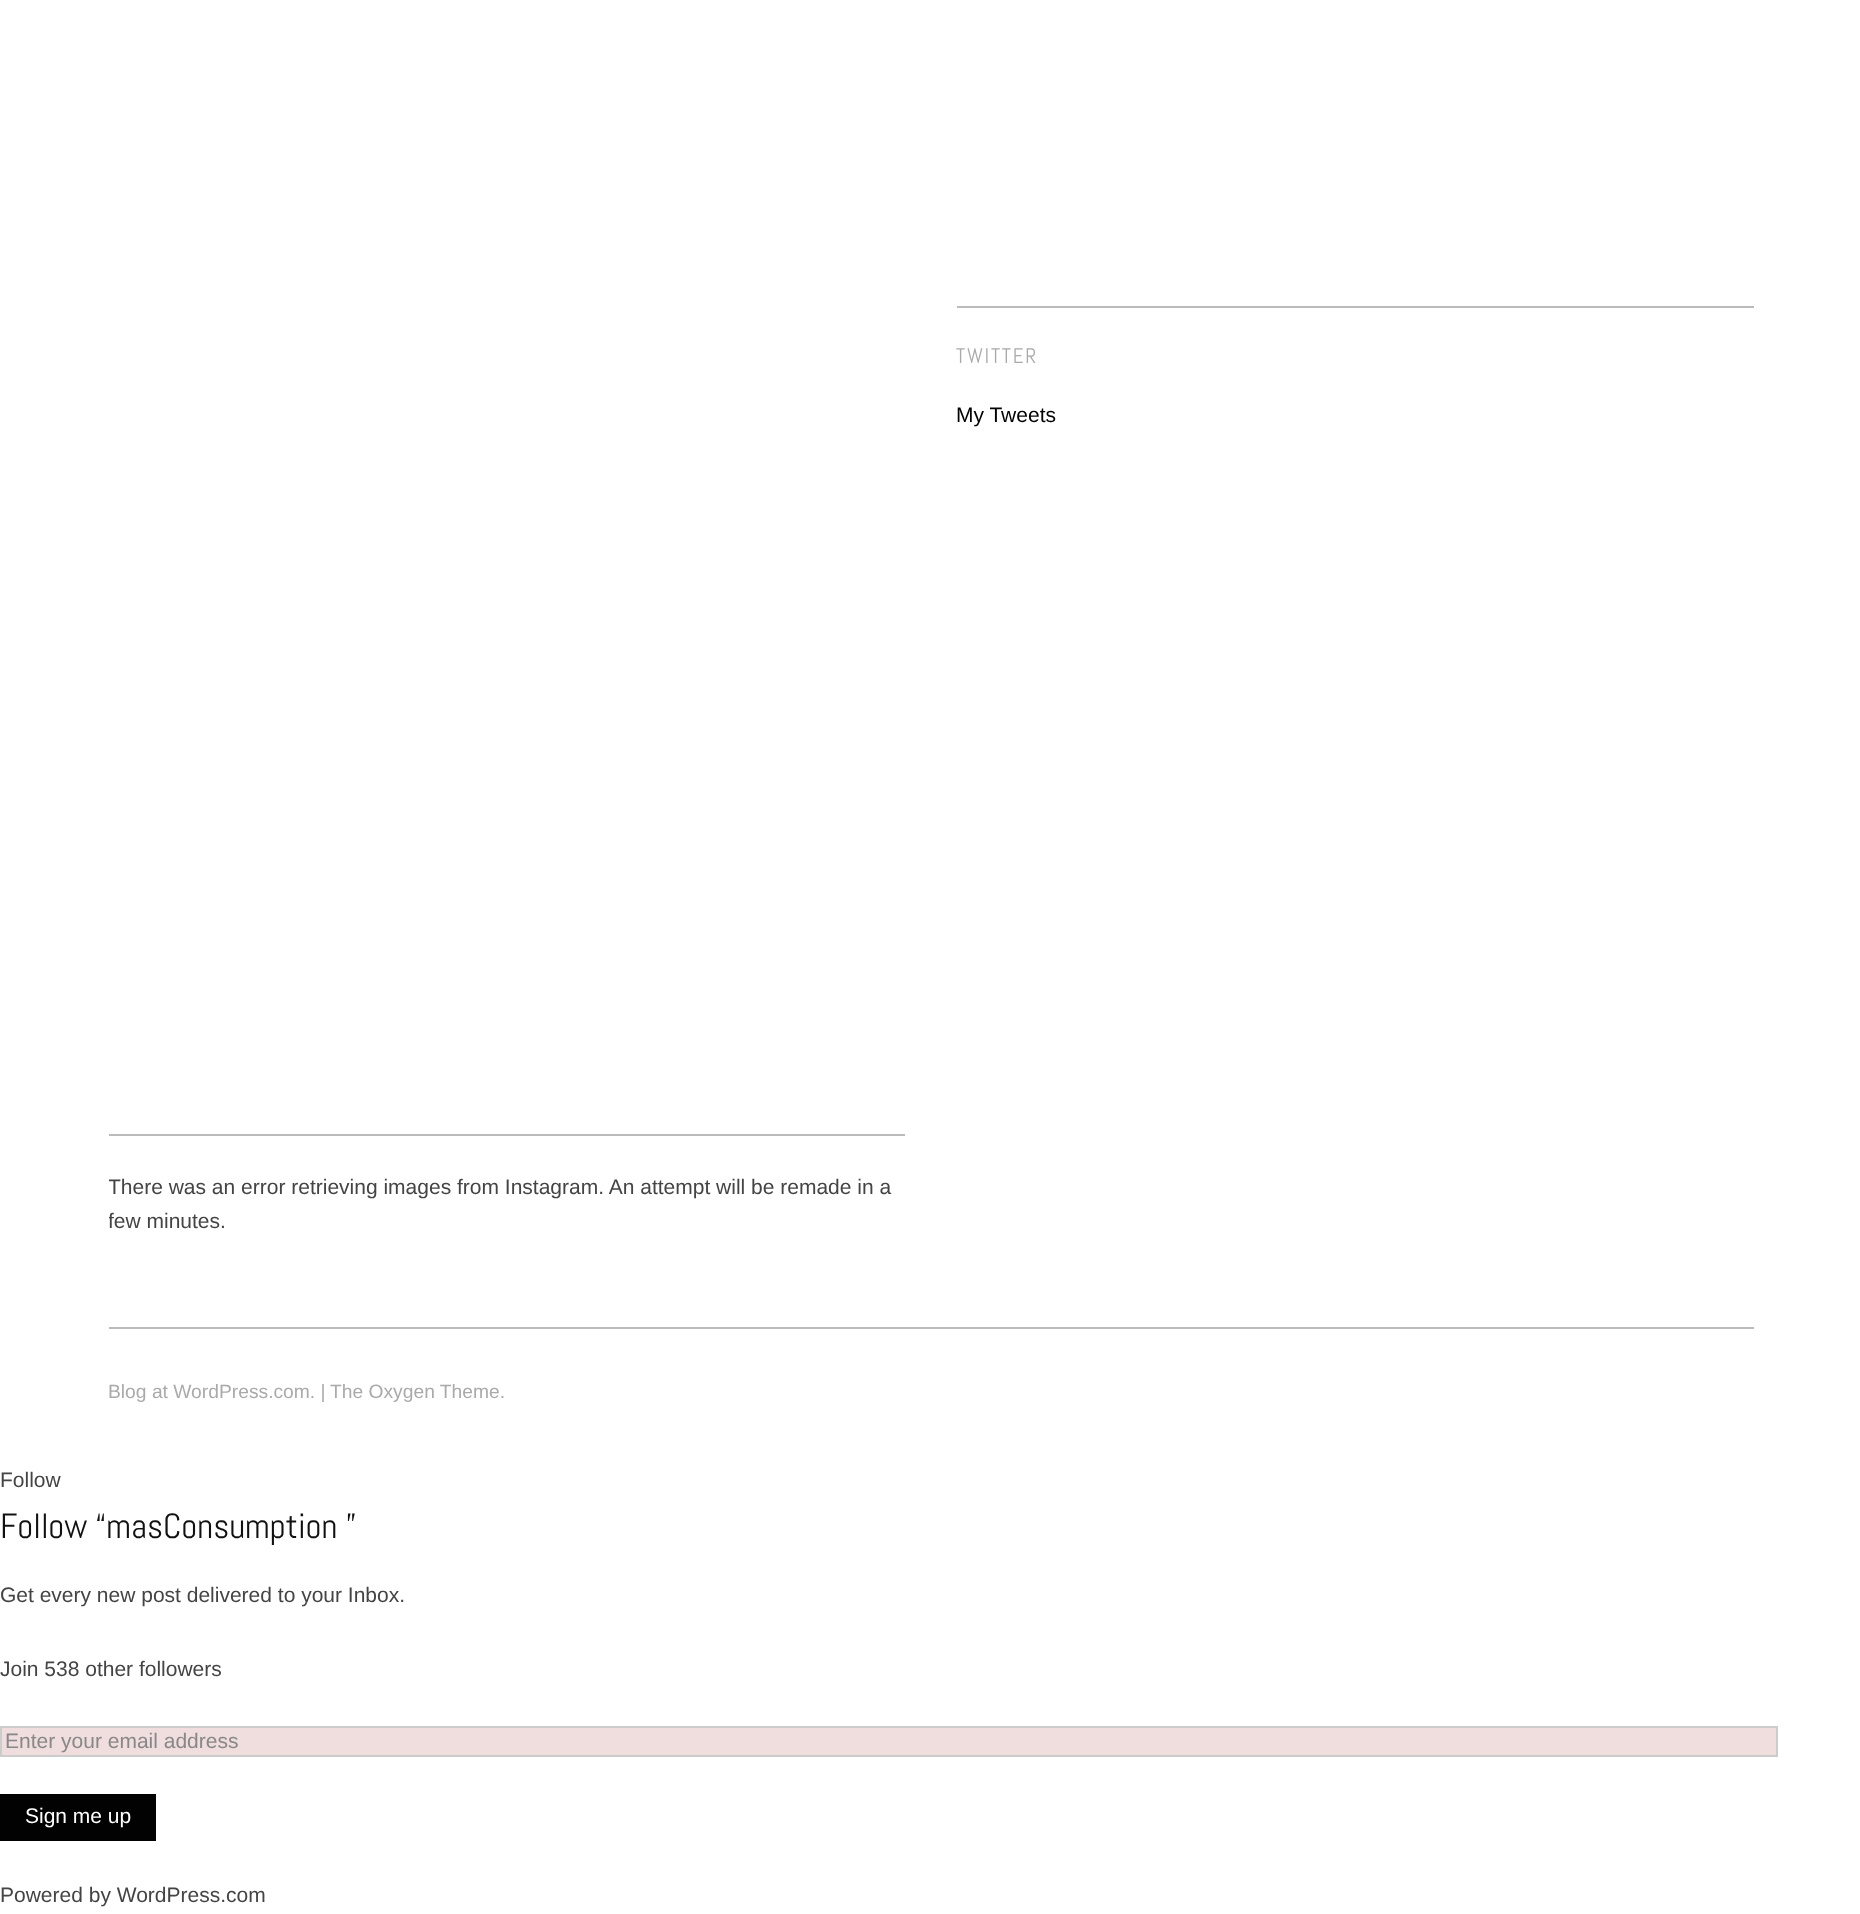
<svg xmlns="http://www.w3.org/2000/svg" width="1860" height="1914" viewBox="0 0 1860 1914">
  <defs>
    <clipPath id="clip1"><path d="M109 1136h796v103H109z"/></clipPath>
  </defs>
  <rect width="100%" height="100%" fill="#fff"/>
  <path d="M957 306h797v2H957z" fill="#bbb"/>
  <path d="M109 1134h796v2H109z" fill="#bbb"/>
  <path d="M109 1327h1645v2H109z" fill="#bbb"/>
  <path d="M1 1727h1776v29H1z" fill="#f0dddd" stroke="#ccc" stroke-width="2"/>
  <path d="M0 1794h156v47H0z" fill="#030203"/>
  <text x="956" y="363" font-family="Abel" font-size="21" letter-spacing="1.75" fill="#aaa">TWITTER</text>
  <text x="956" y="422" font-family="Liberation Sans" font-size="21" fill="#030203">My Tweets</text>
  <g clip-path="url(#clip1)">
    <g font-family="Liberation Sans" font-size="21" fill="#444">
      <text x="108" y="1194">There was an error retrieving images from Instagram. An attempt will be remade in a</text>
      <text x="108" y="1228">few minutes.</text>
    </g>
  </g>
  <g font-family="Liberation Sans" font-size="19.25" fill="#aaa">
    <text x="108" y="1398">Blog at WordPress.com. |</text>
    <text x="330" y="1398">The Oxygen Theme.</text>
  </g>
  <text x="0" y="1487" font-family="Liberation Sans" font-size="21" fill="#444">Follow</text>
  <text x="0" y="1538" font-family="Abel" font-size="35" fill="#111">Follow “masConsumption ”</text>
  <g font-family="Liberation Sans" font-size="21" fill="#444">
    <text x="0" y="1602">Get every new post delivered to your Inbox.</text>
    <text x="0" y="1676">Join 538 other followers</text>
  </g>
  <text x="5" y="1748" font-family="Liberation Sans" font-size="21" fill="#888">Enter your email address</text>
  <text x="25" y="1823" font-family="Liberation Sans" font-size="21" fill="#fff">Sign me up</text>
  <text x="0" y="1902" font-family="Liberation Sans" font-size="21" fill="#444">Powered by WordPress.com</text>
</svg>
